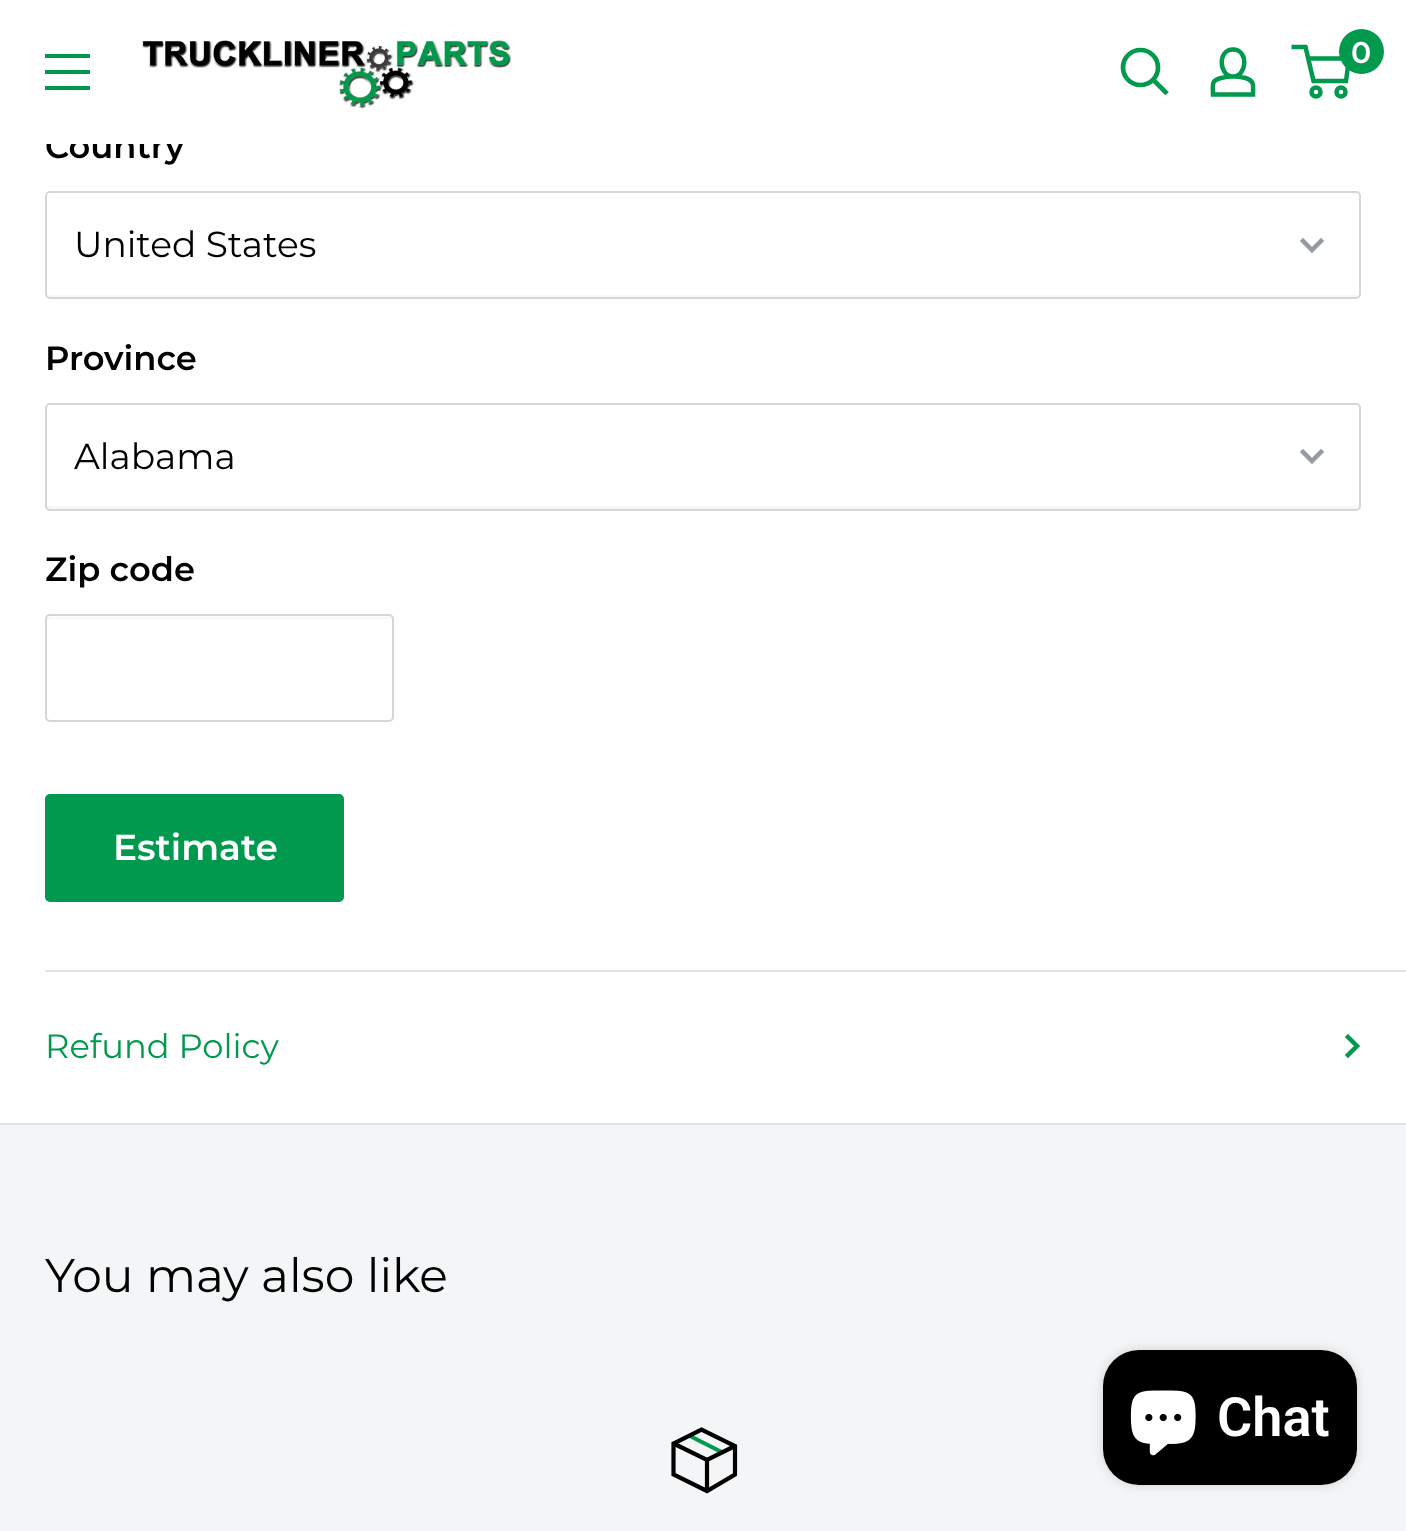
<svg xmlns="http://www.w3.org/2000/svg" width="1406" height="1531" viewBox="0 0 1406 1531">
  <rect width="100%" height="100%" fill="#f3f5f6"/>
  <path d="M0 144h1406v979H0z" fill="#fff"/>
  <path d="M0 1123h1406v2H0z" fill="#e1e3e4"/>
  <path d="M47 292V296L49 297H1357C1360 297 1359 294 1359 292C1359 294 1358 295 1357 295H50C48 295 47 294 47 292Z" fill="#f6f7f7"/>
  <rect x="46" y="192" width="1314" height="106" rx="4" fill="none" stroke="#d4d6d8" stroke-width="2"/>
  <path d="M1321 241L1312 250L1303 241" fill="none" stroke="#959ca1" stroke-width="4.5" stroke-linecap="square"/>
  <path d="M47 504V508L49 509H1357C1360 509 1359 506 1359 504C1359 505 1358 506 1357 506H50C48 506 47 505 47 504Z" fill="#f6f7f7"/>
  <rect x="46" y="404" width="1314" height="106" rx="4" fill="none" stroke="#d4d6d8" stroke-width="2"/>
  <path d="M1321 452L1312 461L1303 452" fill="none" stroke="#959ca1" stroke-width="4.5" stroke-linecap="square"/>
  <path d="M50 619H389C390 619 392 620 392 621V619C392 618 391 617 390 617H49C48 617 47 618 47 619V621C47 620 48 619 50 619Z" fill="#f8f8f8"/>
  <rect x="46" y="615" width="347" height="106" rx="4" fill="none" stroke="#d4d6d8" stroke-width="2"/>
  <rect x="45" y="794" width="299" height="108" rx="5" fill="#00994d"/>
  <path d="M45 970h1361v2H45z" fill="#e1e3e4"/>
  <path d="M1348 1037L1357 1046L1348 1055" fill="none" stroke="#00994d" stroke-width="4.5" stroke-linecap="square"/>
  <rect x="1103" y="1350" width="254" height="135" rx="36" fill="#00000026" filter="blur(5.5px)"/>
  <rect x="1103" y="1350" width="254" height="135" rx="36" fill="#000"/>
  <image x="1130" y="1390" width="66" height="66" href="img/2.png"/>
  <path d="M689 1435.5L722.5 1452.5" fill="none" stroke="#00994d" stroke-width="4.2"/>
  <path d="M735 1446L707 1460L673.5 1443.5M707 1460V1491" fill="none" stroke="#000" stroke-width="4.2"/>
  <path d="M735 1446V1474.5L707 1491L673.5 1474.5V1443.5L701.5 1429.5Z" fill="none" stroke="#000" stroke-width="4.2" stroke-linecap="square"/>
  <text x="45" y="158" font-family="Montserrat" font-size="33.75" font-weight="600" fill="#000">Country</text>
  <path d="M0 0h1406v144H0z" fill="#fff"/>
  <path d="M1308 58.5H1349L1346 81H1313.5L1305.5 47H1291.5" fill="none" stroke="#00994d" stroke-width="4.5"/>
  <circle cx="1361.5" cy="51.5" r="22.5" fill="#00994d"/>
  <text x="1351" y="63" font-family="Montserrat" font-size="30" font-weight="600" fill="#fff">0</text>
  <circle cx="1341" cy="92" r="4.5" fill="none" stroke="#00994d" stroke-width="4.5"/>
  <circle cx="1316" cy="92" r="4.5" fill="none" stroke="#00994d" stroke-width="4.5"/>
  <path d="M1233 76.5C1237 76.5 1241.5 77 1245.5 78C1255 81 1253 86 1253 94.5H1213C1213 85.5 1210.5 80.5 1221 78C1225 77 1229 76.5 1233 76.5ZM1233 76.5C1219 76.5 1217 49.5 1233 49.5C1249 49.5 1247 76.5 1233 76.5Z" fill="none" stroke="#00994d" stroke-width="4.5"/>
  <path d="M45 86H90V90H45ZM45 54H90V58H45ZM45 70H90V74H45Z" fill="#00994d" fill-rule="evenodd"/>
  <path d="M1165.5 92L1153.5 80" fill="none" stroke="#00994d" stroke-width="4.7" stroke-linecap="square"/>
  <circle cx="1140.5" cy="67.5" r="17.5" fill="none" stroke="#00994d" stroke-width="4.7"/>
  <image x="142" y="38" width="370" height="71" href="img/1.png"/>
  <text x="74" y="257" font-family="Montserrat" font-size="36" fill="#000">United States</text>
  <text x="45" y="370" font-family="Montserrat" font-size="33.75" font-weight="600" fill="#000">Province</text>
  <text x="74" y="469" font-family="Montserrat" font-size="36" fill="#000">Alabama</text>
  <text x="45" y="581" font-family="Montserrat" font-size="33.75" font-weight="600" fill="#000">Zip code</text>
  <text x="113" y="860" font-family="Montserrat" font-size="36" font-weight="600" fill="#fff">Estimate</text>
  <text x="45" y="1058" font-family="Montserrat" font-size="33.75" fill="#00994d">Refund Policy</text>
  <text x="45" y="1292" font-family="Montserrat" font-size="47.25" fill="#000">You may also like</text>
  <text x="1217" y="1436" font-family="Roboto" font-size="54" font-weight="600" fill="#fff">Chat</text>
</svg>
